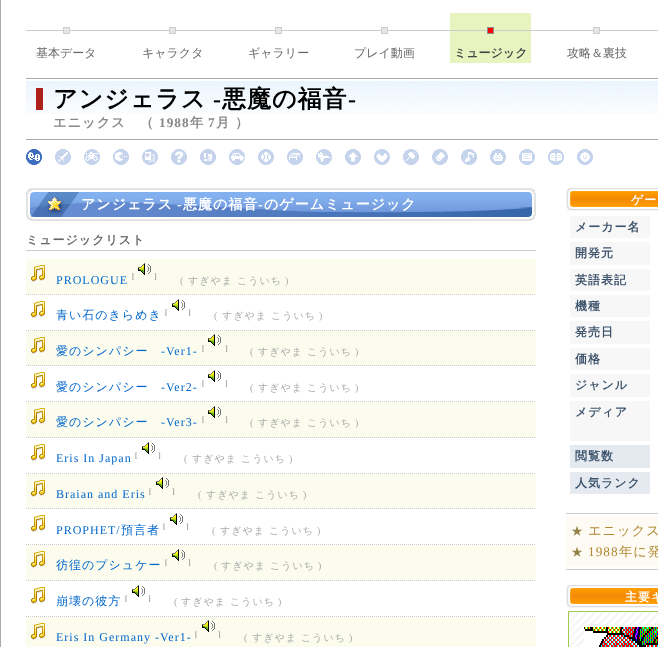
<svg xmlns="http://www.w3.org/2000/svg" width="658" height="647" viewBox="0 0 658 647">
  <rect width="100%" height="100%" fill="#fff"/>
  <path d="M0 0h1v647H0z" fill="#aaa"/>
  <path d="M107 30h25v1H107z" fill="#cdcdcd"/>
  <path d="M213 30h25v1H213z" fill="#cdcdcd"/>
  <path d="M319 30h25v1H319z" fill="#cdcdcd"/>
  <path d="M425 30h25v1H425z" fill="#cdcdcd"/>
  <path d="M531 30h25v1H531z" fill="#cdcdcd"/>
  <path d="M637 30h21v1H637z" fill="#cdcdcd"/>
  <image x="26" y="27" width="81" height="7" href="img/1.png"/>
  <image x="132" y="27" width="81" height="7" href="img/1.png"/>
  <image x="238" y="27" width="81" height="7" href="img/1.png"/>
  <image x="344" y="27" width="81" height="7" href="img/1.png"/>
  <path d="M450 13h81v50H450z" fill="#e8f4bf"/>
  <image x="450" y="27" width="81" height="7" href="img/2.png"/>
  <image x="556" y="27" width="81" height="7" href="img/1.png"/>
  <image x="26" y="81" width="632" height="33" href="img/3.png"/>
  <path d="M26 78h632v1H26z" fill="#aaa"/>
  <path d="M26 139h632v1H26z" fill="#aaa"/>
  <path d="M36 88h7v22H36z" fill="#ae211b"/>
  <image x="26" y="149" width="16" height="16" href="img/4.png"/>
  <image x="55" y="149" width="16" height="16" href="img/5.png"/>
  <image x="84" y="149" width="16" height="16" href="img/6.png"/>
  <image x="113" y="149" width="16" height="16" href="img/7.png"/>
  <image x="142" y="149" width="16" height="16" href="img/8.png"/>
  <image x="171" y="149" width="16" height="16" href="img/9.png"/>
  <image x="200" y="149" width="16" height="16" href="img/10.png"/>
  <image x="229" y="149" width="16" height="16" href="img/11.png"/>
  <image x="258" y="149" width="16" height="16" href="img/12.png"/>
  <image x="287" y="149" width="16" height="16" href="img/13.png"/>
  <image x="316" y="149" width="16" height="16" href="img/14.png"/>
  <image x="345" y="149" width="16" height="16" href="img/15.png"/>
  <image x="374" y="149" width="16" height="16" href="img/16.png"/>
  <image x="403" y="149" width="16" height="16" href="img/17.png"/>
  <image x="432" y="149" width="16" height="16" href="img/18.png"/>
  <image x="461" y="149" width="16" height="16" href="img/19.png"/>
  <image x="490" y="149" width="16" height="16" href="img/20.png"/>
  <image x="519" y="149" width="16" height="16" href="img/21.png"/>
  <image x="548" y="149" width="16" height="16" href="img/22.png"/>
  <image x="577" y="149" width="16" height="16" href="img/23.png"/>
  <image x="26" y="188" width="510" height="33" href="img/24.png"/>
  <path d="M26 250h510v1H26z" fill="#ccc"/>
  <path d="M26 259h510v36H26z" fill="#fbfcee"/>
  <image x="31" y="265" width="14" height="17" href="img/25.png"/>
  <path d="M26 294.5H536" fill="none" stroke="#ccc" stroke-dasharray="1 1"/>
  <image x="138" y="263" width="13" height="12" href="img/26.png"/>
  <image x="31" y="301" width="14" height="17" href="img/27.png"/>
  <path d="M26 330.5H536" fill="none" stroke="#ccc" stroke-dasharray="1 1"/>
  <image x="172" y="299" width="13" height="12" href="img/28.png"/>
  <path d="M26 331h510v35H26z" fill="#fbfcee"/>
  <image x="31" y="337" width="14" height="17" href="img/25.png"/>
  <path d="M26 365.5H536" fill="none" stroke="#ccc" stroke-dasharray="1 1"/>
  <image x="208" y="334" width="13" height="12" href="img/26.png"/>
  <image x="31" y="372" width="14" height="17" href="img/27.png"/>
  <path d="M26 401.5H536" fill="none" stroke="#ccc" stroke-dasharray="1 1"/>
  <image x="208" y="370" width="13" height="12" href="img/28.png"/>
  <path d="M26 402h510v36H26z" fill="#fbfcee"/>
  <image x="31" y="408" width="14" height="17" href="img/25.png"/>
  <path d="M26 437.5H536" fill="none" stroke="#ccc" stroke-dasharray="1 1"/>
  <image x="208" y="406" width="13" height="12" href="img/26.png"/>
  <image x="31" y="444" width="14" height="17" href="img/27.png"/>
  <path d="M26 473.5H536" fill="none" stroke="#ccc" stroke-dasharray="1 1"/>
  <image x="142" y="442" width="13" height="12" href="img/28.png"/>
  <path d="M26 474h510v35H26z" fill="#fbfcee"/>
  <image x="31" y="480" width="14" height="17" href="img/25.png"/>
  <path d="M26 508.5H536" fill="none" stroke="#ccc" stroke-dasharray="1 1"/>
  <image x="156" y="477" width="13" height="12" href="img/26.png"/>
  <image x="31" y="515" width="14" height="17" href="img/27.png"/>
  <path d="M26 544.5H536" fill="none" stroke="#ccc" stroke-dasharray="1 1"/>
  <image x="170" y="513" width="13" height="12" href="img/28.png"/>
  <path d="M26 545h510v36H26z" fill="#fbfcee"/>
  <image x="31" y="551" width="14" height="17" href="img/25.png"/>
  <path d="M26 580.5H536" fill="none" stroke="#ccc" stroke-dasharray="1 1"/>
  <image x="172" y="549" width="13" height="12" href="img/26.png"/>
  <image x="31" y="587" width="14" height="17" href="img/27.png"/>
  <path d="M26 616.5H536" fill="none" stroke="#ccc" stroke-dasharray="1 1"/>
  <image x="132" y="585" width="13" height="12" href="img/28.png"/>
  <path d="M26 617h510v30H26z" fill="#fbfcee"/>
  <image x="31" y="623" width="14" height="17" href="img/25.png"/>
  <image x="202" y="620" width="13" height="12" href="img/26.png"/>
  <image x="566" y="188" width="92" height="23" href="img/29.png"/>
  <path d="M570 216h80v22H570z" fill="#f7f7f7"/>
  <path d="M570 242h80v23H570z" fill="#f7f7f7"/>
  <path d="M570 269h80v22H570z" fill="#f7f7f7"/>
  <path d="M570 295h80v22H570z" fill="#f7f7f7"/>
  <path d="M570 321h80v23H570z" fill="#f7f7f7"/>
  <path d="M570 348h80v22H570z" fill="#f7f7f7"/>
  <path d="M570 374h80v23H570z" fill="#f7f7f7"/>
  <path d="M570 401h80v40H570z" fill="#f7f7f7"/>
  <path d="M570 445h80v23H570z" fill="#e5eaf0"/>
  <path d="M570 472h80v22H570z" fill="#e5eaf0"/>
  <path d="M566 513h92v1H566z" fill="#ccc"/>
  <path d="M566 569h92v1H566z" fill="#ccc"/>
  <path d="M566 516h92v51H566z" fill="#fdfbf4"/>
  <image x="566" y="585" width="92" height="23" href="img/29.png"/>
  <image x="569" y="612" width="89" height="35" href="img/30.png"/>
  <path d="M568.5 611.5h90v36H568.5z" fill="none" stroke="#a3c64e"/>
  <image x="584" y="627" width="74" height="20" href="img/31.png"/>
  <g font-family="WenQuanYi Zen Hei" font-size="12" font-weight="500" fill="#666">
    <text x="36" y="57">基本データ</text>
    <text x="142" y="57">キャラクタ</text>
    <text x="248" y="57">ギャラリー</text>
    <text x="354" y="57">プレイ動画</text>
  </g>
  <text x="454" y="57" font-family="WenQuanYi Zen Hei" font-size="12" font-weight="bold" fill="#444">ミュージック</text>
  <text x="567" y="57" font-family="WenQuanYi Zen Hei" font-size="12" font-weight="500" fill="#666">攻略＆裏技</text>
  <text x="53" y="107" font-family="WenQuanYi Zen Hei" font-size="24" font-weight="bold" letter-spacing="1" fill="#000">アンジェラス</text>
  <text x="213" y="107" font-family="Liberation Serif" font-size="24" font-weight="bold" letter-spacing="1" fill="#000">-</text>
  <text x="222" y="107" font-family="WenQuanYi Zen Hei" font-size="24" font-weight="bold" letter-spacing="1" fill="#000">悪魔の福音</text>
  <text x="348" y="107" font-family="Liberation Serif" font-size="24" font-weight="bold" letter-spacing="1" fill="#000">-</text>
  <text x="53" y="127" font-family="WenQuanYi Zen Hei" font-size="13.25" font-weight="bold" letter-spacing="1" fill="#888">エニックス　（</text>
  <text x="159" y="127" font-family="Liberation Serif" font-size="13.25" font-weight="bold" letter-spacing="1" fill="#888">1988</text>
  <text x="190" y="127" font-family="WenQuanYi Zen Hei" font-size="13.25" font-weight="bold" letter-spacing="1" fill="#888">年</text>
  <text x="208" y="127" font-family="Liberation Serif" font-size="13.25" font-weight="bold" letter-spacing="1" fill="#888">7</text>
  <text x="216" y="127" font-family="WenQuanYi Zen Hei" font-size="13.25" font-weight="bold" letter-spacing="1" fill="#888">月 ）</text>
  <text x="81" y="209" font-family="WenQuanYi Zen Hei" font-size="14" font-weight="bold" letter-spacing="1" fill="#fff">アンジェラス</text>
  <text x="177" y="209" font-family="Liberation Serif" font-size="14" font-weight="bold" letter-spacing="1" fill="#fff">-</text>
  <text x="183" y="209" font-family="WenQuanYi Zen Hei" font-size="14" font-weight="bold" letter-spacing="1" fill="#fff">悪魔の福音</text>
  <text x="258" y="209" font-family="Liberation Serif" font-size="14" font-weight="bold" letter-spacing="1" fill="#fff">-</text>
  <text x="264" y="209" font-family="WenQuanYi Zen Hei" font-size="14" font-weight="bold" letter-spacing="1" fill="#fff">のゲームミュージック</text>
  <text x="26" y="244" font-family="WenQuanYi Zen Hei" font-size="12" font-weight="bold" letter-spacing="1" fill="#666">ミュージックリスト</text>
  <text x="56" y="284" font-family="Liberation Serif" font-size="12" letter-spacing="1" fill="#06c">PROLOGUE</text>
  <g font-family="Liberation Serif" font-size="8" letter-spacing="1" fill="#777">
    <text x="132" y="279">[</text>
    <text x="154" y="279">]</text>
  </g>
  <text x="180" y="284" font-family="Liberation Serif" font-size="10" letter-spacing="1" fill="#aaa">(</text>
  <text x="188" y="284" font-family="WenQuanYi Zen Hei" font-size="10" font-weight="500" letter-spacing="1" fill="#aaa">すぎやま こういち</text>
  <text x="285" y="284" font-family="Liberation Serif" font-size="10" letter-spacing="1" fill="#aaa">)</text>
  <text x="56" y="319" font-family="WenQuanYi Zen Hei" font-size="12" font-weight="500" letter-spacing="1" fill="#06c">青い石のきらめき</text>
  <g font-family="Liberation Serif" font-size="8" letter-spacing="1" fill="#777">
    <text x="165" y="315">[</text>
    <text x="188" y="315">]</text>
  </g>
  <text x="214" y="319" font-family="Liberation Serif" font-size="10" letter-spacing="1" fill="#aaa">(</text>
  <text x="222" y="319" font-family="WenQuanYi Zen Hei" font-size="10" font-weight="500" letter-spacing="1" fill="#aaa">すぎやま こういち</text>
  <text x="319" y="319" font-family="Liberation Serif" font-size="10" letter-spacing="1" fill="#aaa">)</text>
  <text x="56" y="355" font-family="WenQuanYi Zen Hei" font-size="12" font-weight="500" letter-spacing="1" fill="#06c">愛のシンパシー</text>
  <text x="161" y="355" font-family="Liberation Serif" font-size="12" letter-spacing="1" fill="#06c">-Ver1-</text>
  <g font-family="Liberation Serif" font-size="8" letter-spacing="1" fill="#777">
    <text x="202" y="351">[</text>
    <text x="225" y="351">]</text>
  </g>
  <text x="250" y="355" font-family="Liberation Serif" font-size="10" letter-spacing="1" fill="#aaa">(</text>
  <text x="258" y="355" font-family="WenQuanYi Zen Hei" font-size="10" font-weight="500" letter-spacing="1" fill="#aaa">すぎやま こういち</text>
  <text x="355" y="355" font-family="Liberation Serif" font-size="10" letter-spacing="1" fill="#aaa">)</text>
  <text x="56" y="391" font-family="WenQuanYi Zen Hei" font-size="12" font-weight="500" letter-spacing="1" fill="#06c">愛のシンパシー</text>
  <text x="161" y="391" font-family="Liberation Serif" font-size="12" letter-spacing="1" fill="#06c">-Ver2-</text>
  <g font-family="Liberation Serif" font-size="8" letter-spacing="1" fill="#777">
    <text x="202" y="386">[</text>
    <text x="225" y="386">]</text>
  </g>
  <text x="250" y="391" font-family="Liberation Serif" font-size="10" letter-spacing="1" fill="#aaa">(</text>
  <text x="258" y="391" font-family="WenQuanYi Zen Hei" font-size="10" font-weight="500" letter-spacing="1" fill="#aaa">すぎやま こういち</text>
  <text x="355" y="391" font-family="Liberation Serif" font-size="10" letter-spacing="1" fill="#aaa">)</text>
  <text x="56" y="426" font-family="WenQuanYi Zen Hei" font-size="12" font-weight="500" letter-spacing="1" fill="#06c">愛のシンパシー</text>
  <text x="161" y="426" font-family="Liberation Serif" font-size="12" letter-spacing="1" fill="#06c">-Ver3-</text>
  <g font-family="Liberation Serif" font-size="8" letter-spacing="1" fill="#777">
    <text x="202" y="422">[</text>
    <text x="225" y="422">]</text>
  </g>
  <text x="250" y="426" font-family="Liberation Serif" font-size="10" letter-spacing="1" fill="#aaa">(</text>
  <text x="258" y="426" font-family="WenQuanYi Zen Hei" font-size="10" font-weight="500" letter-spacing="1" fill="#aaa">すぎやま こういち</text>
  <text x="355" y="426" font-family="Liberation Serif" font-size="10" letter-spacing="1" fill="#aaa">)</text>
  <text x="56" y="462" font-family="Liberation Serif" font-size="12" letter-spacing="1" fill="#06c">Eris In Japan</text>
  <g font-family="Liberation Serif" font-size="8" letter-spacing="1" fill="#777">
    <text x="135" y="458">[</text>
    <text x="158" y="458">]</text>
  </g>
  <text x="184" y="462" font-family="Liberation Serif" font-size="10" letter-spacing="1" fill="#aaa">(</text>
  <text x="192" y="462" font-family="WenQuanYi Zen Hei" font-size="10" font-weight="500" letter-spacing="1" fill="#aaa">すぎやま こういち</text>
  <text x="289" y="462" font-family="Liberation Serif" font-size="10" letter-spacing="1" fill="#aaa">)</text>
  <text x="56" y="498" font-family="Liberation Serif" font-size="12" letter-spacing="1" fill="#06c">Braian and Eris</text>
  <g font-family="Liberation Serif" font-size="8" letter-spacing="1" fill="#777">
    <text x="149" y="494">[</text>
    <text x="172" y="494">]</text>
  </g>
  <text x="198" y="498" font-family="Liberation Serif" font-size="10" letter-spacing="1" fill="#aaa">(</text>
  <text x="206" y="498" font-family="WenQuanYi Zen Hei" font-size="10" font-weight="500" letter-spacing="1" fill="#aaa">すぎやま こういち</text>
  <text x="303" y="498" font-family="Liberation Serif" font-size="10" letter-spacing="1" fill="#aaa">)</text>
  <text x="56" y="534" font-family="Liberation Serif" font-size="12" letter-spacing="1" fill="#06c">PROPHET/</text>
  <text x="121" y="534" font-family="WenQuanYi Zen Hei" font-size="12" font-weight="500" letter-spacing="1" fill="#06c">預言者</text>
  <g font-family="Liberation Serif" font-size="8" letter-spacing="1" fill="#777">
    <text x="163" y="529">[</text>
    <text x="186" y="529">]</text>
  </g>
  <text x="212" y="534" font-family="Liberation Serif" font-size="10" letter-spacing="1" fill="#aaa">(</text>
  <text x="220" y="534" font-family="WenQuanYi Zen Hei" font-size="10" font-weight="500" letter-spacing="1" fill="#aaa">すぎやま こういち</text>
  <text x="317" y="534" font-family="Liberation Serif" font-size="10" letter-spacing="1" fill="#aaa">)</text>
  <text x="56" y="569" font-family="WenQuanYi Zen Hei" font-size="12" font-weight="500" letter-spacing="1" fill="#06c">彷徨のプシュケー</text>
  <g font-family="Liberation Serif" font-size="8" letter-spacing="1" fill="#777">
    <text x="165" y="565">[</text>
    <text x="188" y="565">]</text>
  </g>
  <text x="214" y="569" font-family="Liberation Serif" font-size="10" letter-spacing="1" fill="#aaa">(</text>
  <text x="221" y="569" font-family="WenQuanYi Zen Hei" font-size="10" font-weight="500" letter-spacing="1" fill="#aaa">すぎやま こういち</text>
  <text x="318" y="569" font-family="Liberation Serif" font-size="10" letter-spacing="1" fill="#aaa">)</text>
  <text x="56" y="605" font-family="WenQuanYi Zen Hei" font-size="12" font-weight="500" letter-spacing="1" fill="#06c">崩壊の彼方</text>
  <g font-family="Liberation Serif" font-size="8" letter-spacing="1" fill="#777">
    <text x="125" y="601">[</text>
    <text x="148" y="601">]</text>
  </g>
  <text x="174" y="605" font-family="Liberation Serif" font-size="10" letter-spacing="1" fill="#aaa">(</text>
  <text x="181" y="605" font-family="WenQuanYi Zen Hei" font-size="10" font-weight="500" letter-spacing="1" fill="#aaa">すぎやま こういち</text>
  <text x="278" y="605" font-family="Liberation Serif" font-size="10" letter-spacing="1" fill="#aaa">)</text>
  <text x="56" y="641" font-family="Liberation Serif" font-size="12" letter-spacing="1" fill="#06c">Eris In Germany -Ver1-</text>
  <g font-family="Liberation Serif" font-size="8" letter-spacing="1" fill="#777">
    <text x="195" y="637">[</text>
    <text x="218" y="637">]</text>
  </g>
  <text x="244" y="641" font-family="Liberation Serif" font-size="10" letter-spacing="1" fill="#aaa">(</text>
  <text x="252" y="641" font-family="WenQuanYi Zen Hei" font-size="10" font-weight="500" letter-spacing="1" fill="#aaa">すぎやま こういち</text>
  <text x="349" y="641" font-family="Liberation Serif" font-size="10" letter-spacing="1" fill="#aaa">)</text>
  <text x="631" y="204" font-family="WenQuanYi Zen Hei" font-size="12" font-weight="bold" letter-spacing="1" fill="#fff">ゲー</text>
  <g font-family="WenQuanYi Zen Hei" font-size="12" font-weight="bold" letter-spacing="1" fill="#3d536b">
    <text x="575" y="231">メーカー名</text>
    <text x="575" y="257">開発元</text>
    <text x="575" y="284">英語表記</text>
    <text x="575" y="310">機種</text>
    <text x="575" y="336">発売日</text>
    <text x="575" y="363">価格</text>
    <text x="575" y="389">ジャンル</text>
    <text x="575" y="416">メディア</text>
    <text x="575" y="460">閲覧数</text>
    <text x="575" y="487">人気ランク</text>
  </g>
  <text x="571" y="535" font-family="WenQuanYi Zen Hei" font-size="12" font-weight="500" letter-spacing="1" fill="#938245">★</text>
  <text x="588" y="535" font-family="WenQuanYi Zen Hei" font-size="13.25" font-weight="500" letter-spacing="1" fill="#b28a34">エニックス</text>
  <text x="571" y="556" font-family="WenQuanYi Zen Hei" font-size="12" font-weight="500" letter-spacing="1" fill="#938245">★</text>
  <text x="588" y="556" font-family="Liberation Serif" font-size="13.25" letter-spacing="1" fill="#b28a34">1988</text>
  <text x="619" y="556" font-family="WenQuanYi Zen Hei" font-size="13.25" font-weight="500" letter-spacing="1" fill="#b28a34">年に発</text>
  <text x="625" y="601" font-family="WenQuanYi Zen Hei" font-size="12" font-weight="bold" letter-spacing="1" fill="#fff">主要キ</text>
</svg>
